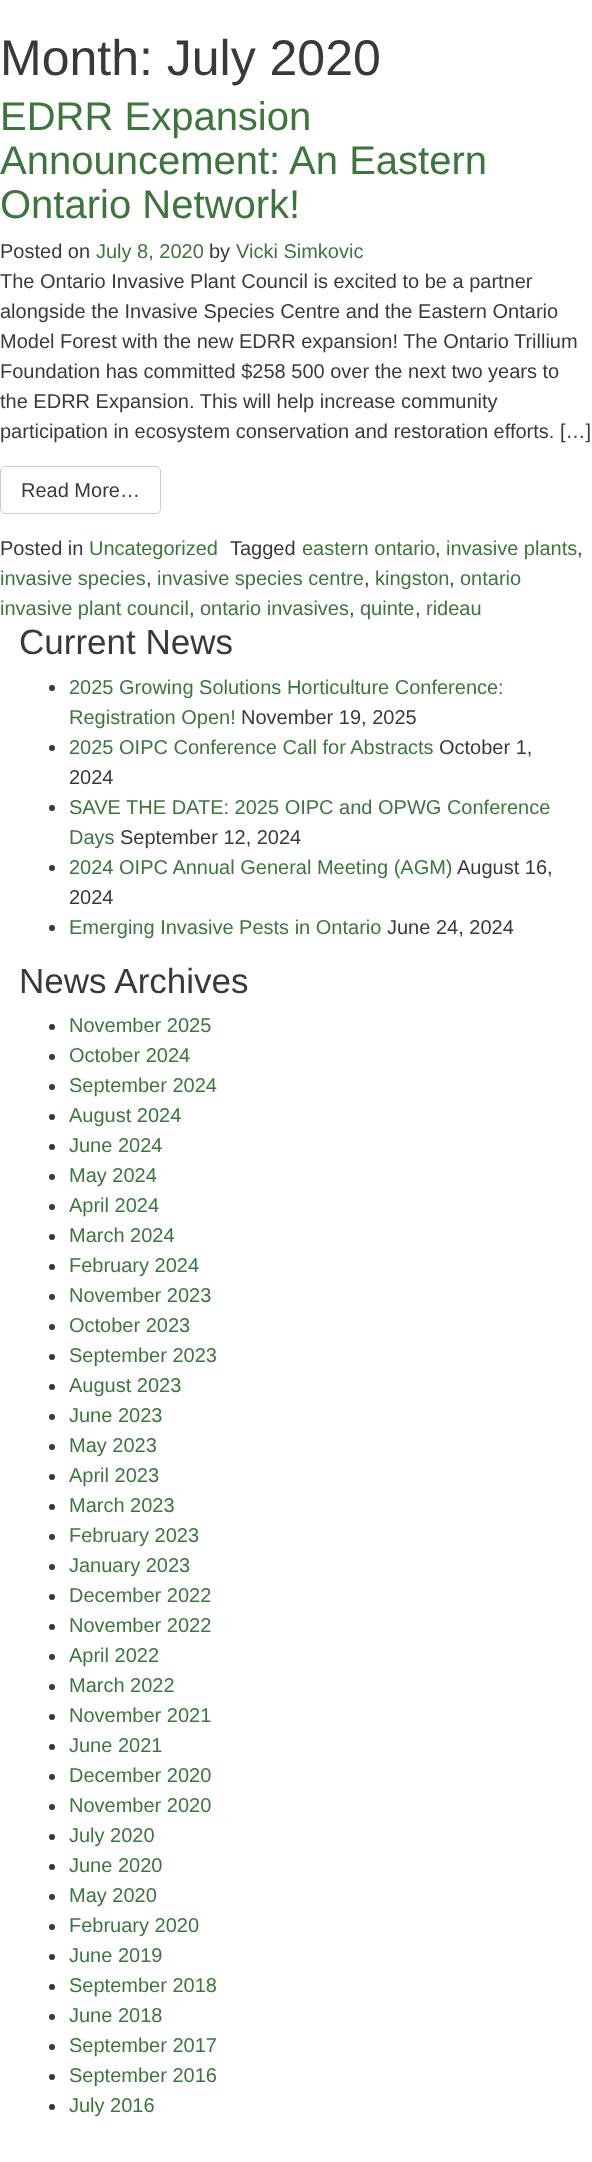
<svg xmlns="http://www.w3.org/2000/svg" width="592" height="2162" viewBox="0 0 592 2162">
  <rect width="100%" height="100%" fill="#fff"/>
  <rect x="0.5" y="466.5" width="160" height="47" rx="4.5" fill="none" stroke="#ccc"/>
  <circle cx="52" cy="688" r="3" fill="#373a3c"/>
  <circle cx="52" cy="748" r="3" fill="#373a3c"/>
  <circle cx="52" cy="808" r="3" fill="#373a3c"/>
  <circle cx="52" cy="868" r="3" fill="#373a3c"/>
  <circle cx="52" cy="928" r="3" fill="#373a3c"/>
  <circle cx="52" cy="1027" r="3" fill="#373a3c"/>
  <circle cx="52" cy="1057" r="3" fill="#373a3c"/>
  <circle cx="52" cy="1087" r="3" fill="#373a3c"/>
  <circle cx="52" cy="1117" r="3" fill="#373a3c"/>
  <circle cx="52" cy="1147" r="3" fill="#373a3c"/>
  <circle cx="52" cy="1177" r="3" fill="#373a3c"/>
  <circle cx="52" cy="1207" r="3" fill="#373a3c"/>
  <circle cx="52" cy="1237" r="3" fill="#373a3c"/>
  <circle cx="52" cy="1267" r="3" fill="#373a3c"/>
  <circle cx="52" cy="1297" r="3" fill="#373a3c"/>
  <circle cx="52" cy="1327" r="3" fill="#373a3c"/>
  <circle cx="52" cy="1357" r="3" fill="#373a3c"/>
  <circle cx="52" cy="1387" r="3" fill="#373a3c"/>
  <circle cx="52" cy="1417" r="3" fill="#373a3c"/>
  <circle cx="52" cy="1447" r="3" fill="#373a3c"/>
  <circle cx="52" cy="1477" r="3" fill="#373a3c"/>
  <circle cx="52" cy="1507" r="3" fill="#373a3c"/>
  <circle cx="52" cy="1537" r="3" fill="#373a3c"/>
  <circle cx="52" cy="1567" r="3" fill="#373a3c"/>
  <circle cx="52" cy="1597" r="3" fill="#373a3c"/>
  <circle cx="52" cy="1627" r="3" fill="#373a3c"/>
  <circle cx="52" cy="1657" r="3" fill="#373a3c"/>
  <circle cx="52" cy="1687" r="3" fill="#373a3c"/>
  <circle cx="52" cy="1717" r="3" fill="#373a3c"/>
  <circle cx="52" cy="1747" r="3" fill="#373a3c"/>
  <circle cx="52" cy="1777" r="3" fill="#373a3c"/>
  <circle cx="52" cy="1807" r="3" fill="#373a3c"/>
  <circle cx="52" cy="1837" r="3" fill="#373a3c"/>
  <circle cx="52" cy="1867" r="3" fill="#373a3c"/>
  <circle cx="52" cy="1897" r="3" fill="#373a3c"/>
  <circle cx="52" cy="1927" r="3" fill="#373a3c"/>
  <circle cx="52" cy="1957" r="3" fill="#373a3c"/>
  <circle cx="52" cy="1987" r="3" fill="#373a3c"/>
  <circle cx="52" cy="2017" r="3" fill="#373a3c"/>
  <circle cx="52" cy="2047" r="3" fill="#373a3c"/>
  <circle cx="52" cy="2077" r="3" fill="#373a3c"/>
  <circle cx="52" cy="2107" r="3" fill="#373a3c"/>
  <text x="0" y="75" font-family="Liberation Sans" font-size="50" fill="#373a3c">Month: July 2020</text>
  <g font-family="Liberation Sans" font-size="40" fill="#3c763d">
    <text x="0" y="130">EDRR Expansion</text>
    <text x="0" y="174">Announcement: An Eastern</text>
    <text x="0" y="218">Ontario Network!</text>
  </g>
  <text x="0" y="258" font-family="Liberation Sans" font-size="20" fill="#373a3c">Posted on</text>
  <text x="96" y="258" font-family="Liberation Sans" font-size="20" fill="#3c763d">July 8, 2020</text>
  <text x="209" y="258" font-family="Liberation Sans" font-size="20" fill="#373a3c">by</text>
  <text x="236" y="258" font-family="Liberation Sans" font-size="20" fill="#3c763d">Vicki Simkovic</text>
  <g font-family="Liberation Sans" font-size="20" fill="#373a3c">
    <text x="0" y="288">The Ontario Invasive Plant Council is excited to be a partner</text>
    <text x="0" y="318">alongside the Invasive Species Centre and the Eastern Ontario</text>
    <text x="0" y="348">Model Forest with the new EDRR expansion! The Ontario Trillium</text>
    <text x="0" y="378">Foundation has committed $258 500 over the next two years to</text>
    <text x="0" y="408">the EDRR Expansion. This will help increase community</text>
    <text x="0" y="438">participation in ecosystem conservation and restoration efforts. […]</text>
    <text x="21" y="497">Read More…</text>
    <text x="0" y="555">Posted in</text>
  </g>
  <text x="89" y="555" font-family="Liberation Sans" font-size="20" fill="#3c763d">Uncategorized</text>
  <text x="230" y="555" font-family="Liberation Sans" font-size="20" fill="#373a3c">Tagged</text>
  <text x="302" y="555" font-family="Liberation Sans" font-size="20" fill="#3c763d">eastern ontario</text>
  <text x="435" y="555" font-family="Liberation Sans" font-size="20" fill="#373a3c">,</text>
  <text x="446" y="555" font-family="Liberation Sans" font-size="20" fill="#3c763d">invasive plants</text>
  <text x="577" y="555" font-family="Liberation Sans" font-size="20" fill="#373a3c">,</text>
  <text x="0" y="585" font-family="Liberation Sans" font-size="20" fill="#3c763d">invasive species</text>
  <text x="146" y="585" font-family="Liberation Sans" font-size="20" fill="#373a3c">,</text>
  <text x="157" y="585" font-family="Liberation Sans" font-size="20" fill="#3c763d">invasive species centre</text>
  <text x="364" y="585" font-family="Liberation Sans" font-size="20" fill="#373a3c">,</text>
  <text x="375" y="585" font-family="Liberation Sans" font-size="20" fill="#3c763d">kingston</text>
  <text x="449" y="585" font-family="Liberation Sans" font-size="20" fill="#373a3c">,</text>
  <g font-family="Liberation Sans" font-size="20" fill="#3c763d">
    <text x="460" y="585">ontario</text>
    <text x="0" y="615">invasive plant council</text>
  </g>
  <text x="189" y="615" font-family="Liberation Sans" font-size="20" fill="#373a3c">,</text>
  <text x="200" y="615" font-family="Liberation Sans" font-size="20" fill="#3c763d">ontario invasives</text>
  <text x="349" y="615" font-family="Liberation Sans" font-size="20" fill="#373a3c">,</text>
  <text x="360" y="615" font-family="Liberation Sans" font-size="20" fill="#3c763d">quinte</text>
  <text x="415" y="615" font-family="Liberation Sans" font-size="20" fill="#373a3c">,</text>
  <text x="426" y="615" font-family="Liberation Sans" font-size="20" fill="#3c763d">rideau</text>
  <text x="19" y="654" font-family="Liberation Sans" font-size="35" fill="#373a3c">Current News</text>
  <g font-family="Liberation Sans" font-size="20" fill="#3c763d">
    <text x="69" y="694">2025 Growing Solutions Horticulture Conference:</text>
    <text x="69" y="724">Registration Open!</text>
  </g>
  <text x="241" y="724" font-family="Liberation Sans" font-size="20" fill="#373a3c">November 19, 2025</text>
  <text x="69" y="754" font-family="Liberation Sans" font-size="20" fill="#3c763d">2025 OIPC Conference Call for Abstracts</text>
  <g font-family="Liberation Sans" font-size="20" fill="#373a3c">
    <text x="439" y="754">October 1,</text>
    <text x="69" y="784">2024</text>
  </g>
  <g font-family="Liberation Sans" font-size="20" fill="#3c763d">
    <text x="69" y="814">SAVE THE DATE: 2025 OIPC and OPWG Conference</text>
    <text x="69" y="844">Days</text>
  </g>
  <text x="120" y="844" font-family="Liberation Sans" font-size="20" fill="#373a3c">September 12, 2024</text>
  <text x="69" y="874" font-family="Liberation Sans" font-size="20" fill="#3c763d">2024 OIPC Annual General Meeting (AGM)</text>
  <g font-family="Liberation Sans" font-size="20" fill="#373a3c">
    <text x="457" y="874">August 16,</text>
    <text x="69" y="904">2024</text>
  </g>
  <text x="69" y="934" font-family="Liberation Sans" font-size="20" fill="#3c763d">Emerging Invasive Pests in Ontario</text>
  <text x="387" y="934" font-family="Liberation Sans" font-size="20" fill="#373a3c">June 24, 2024</text>
  <text x="19" y="993" font-family="Liberation Sans" font-size="35" fill="#373a3c">News Archives</text>
  <g font-family="Liberation Sans" font-size="20" fill="#3c763d">
    <text x="69" y="1032">November 2025</text>
    <text x="69" y="1062">October 2024</text>
    <text x="69" y="1092">September 2024</text>
    <text x="69" y="1122">August 2024</text>
    <text x="69" y="1152">June 2024</text>
    <text x="69" y="1182">May 2024</text>
    <text x="69" y="1212">April 2024</text>
    <text x="69" y="1242">March 2024</text>
    <text x="69" y="1272">February 2024</text>
    <text x="69" y="1302">November 2023</text>
    <text x="69" y="1332">October 2023</text>
    <text x="69" y="1362">September 2023</text>
    <text x="69" y="1392">August 2023</text>
    <text x="69" y="1422">June 2023</text>
    <text x="69" y="1452">May 2023</text>
    <text x="69" y="1482">April 2023</text>
    <text x="69" y="1512">March 2023</text>
    <text x="69" y="1542">February 2023</text>
    <text x="69" y="1572">January 2023</text>
    <text x="69" y="1602">December 2022</text>
    <text x="69" y="1632">November 2022</text>
    <text x="69" y="1662">April 2022</text>
    <text x="69" y="1692">March 2022</text>
    <text x="69" y="1722">November 2021</text>
    <text x="69" y="1752">June 2021</text>
    <text x="69" y="1782">December 2020</text>
    <text x="69" y="1812">November 2020</text>
    <text x="69" y="1842">July 2020</text>
    <text x="69" y="1872">June 2020</text>
    <text x="69" y="1902">May 2020</text>
    <text x="69" y="1932">February 2020</text>
    <text x="69" y="1962">June 2019</text>
    <text x="69" y="1992">September 2018</text>
    <text x="69" y="2022">June 2018</text>
    <text x="69" y="2052">September 2017</text>
    <text x="69" y="2082">September 2016</text>
    <text x="69" y="2112">July 2016</text>
  </g>
</svg>
